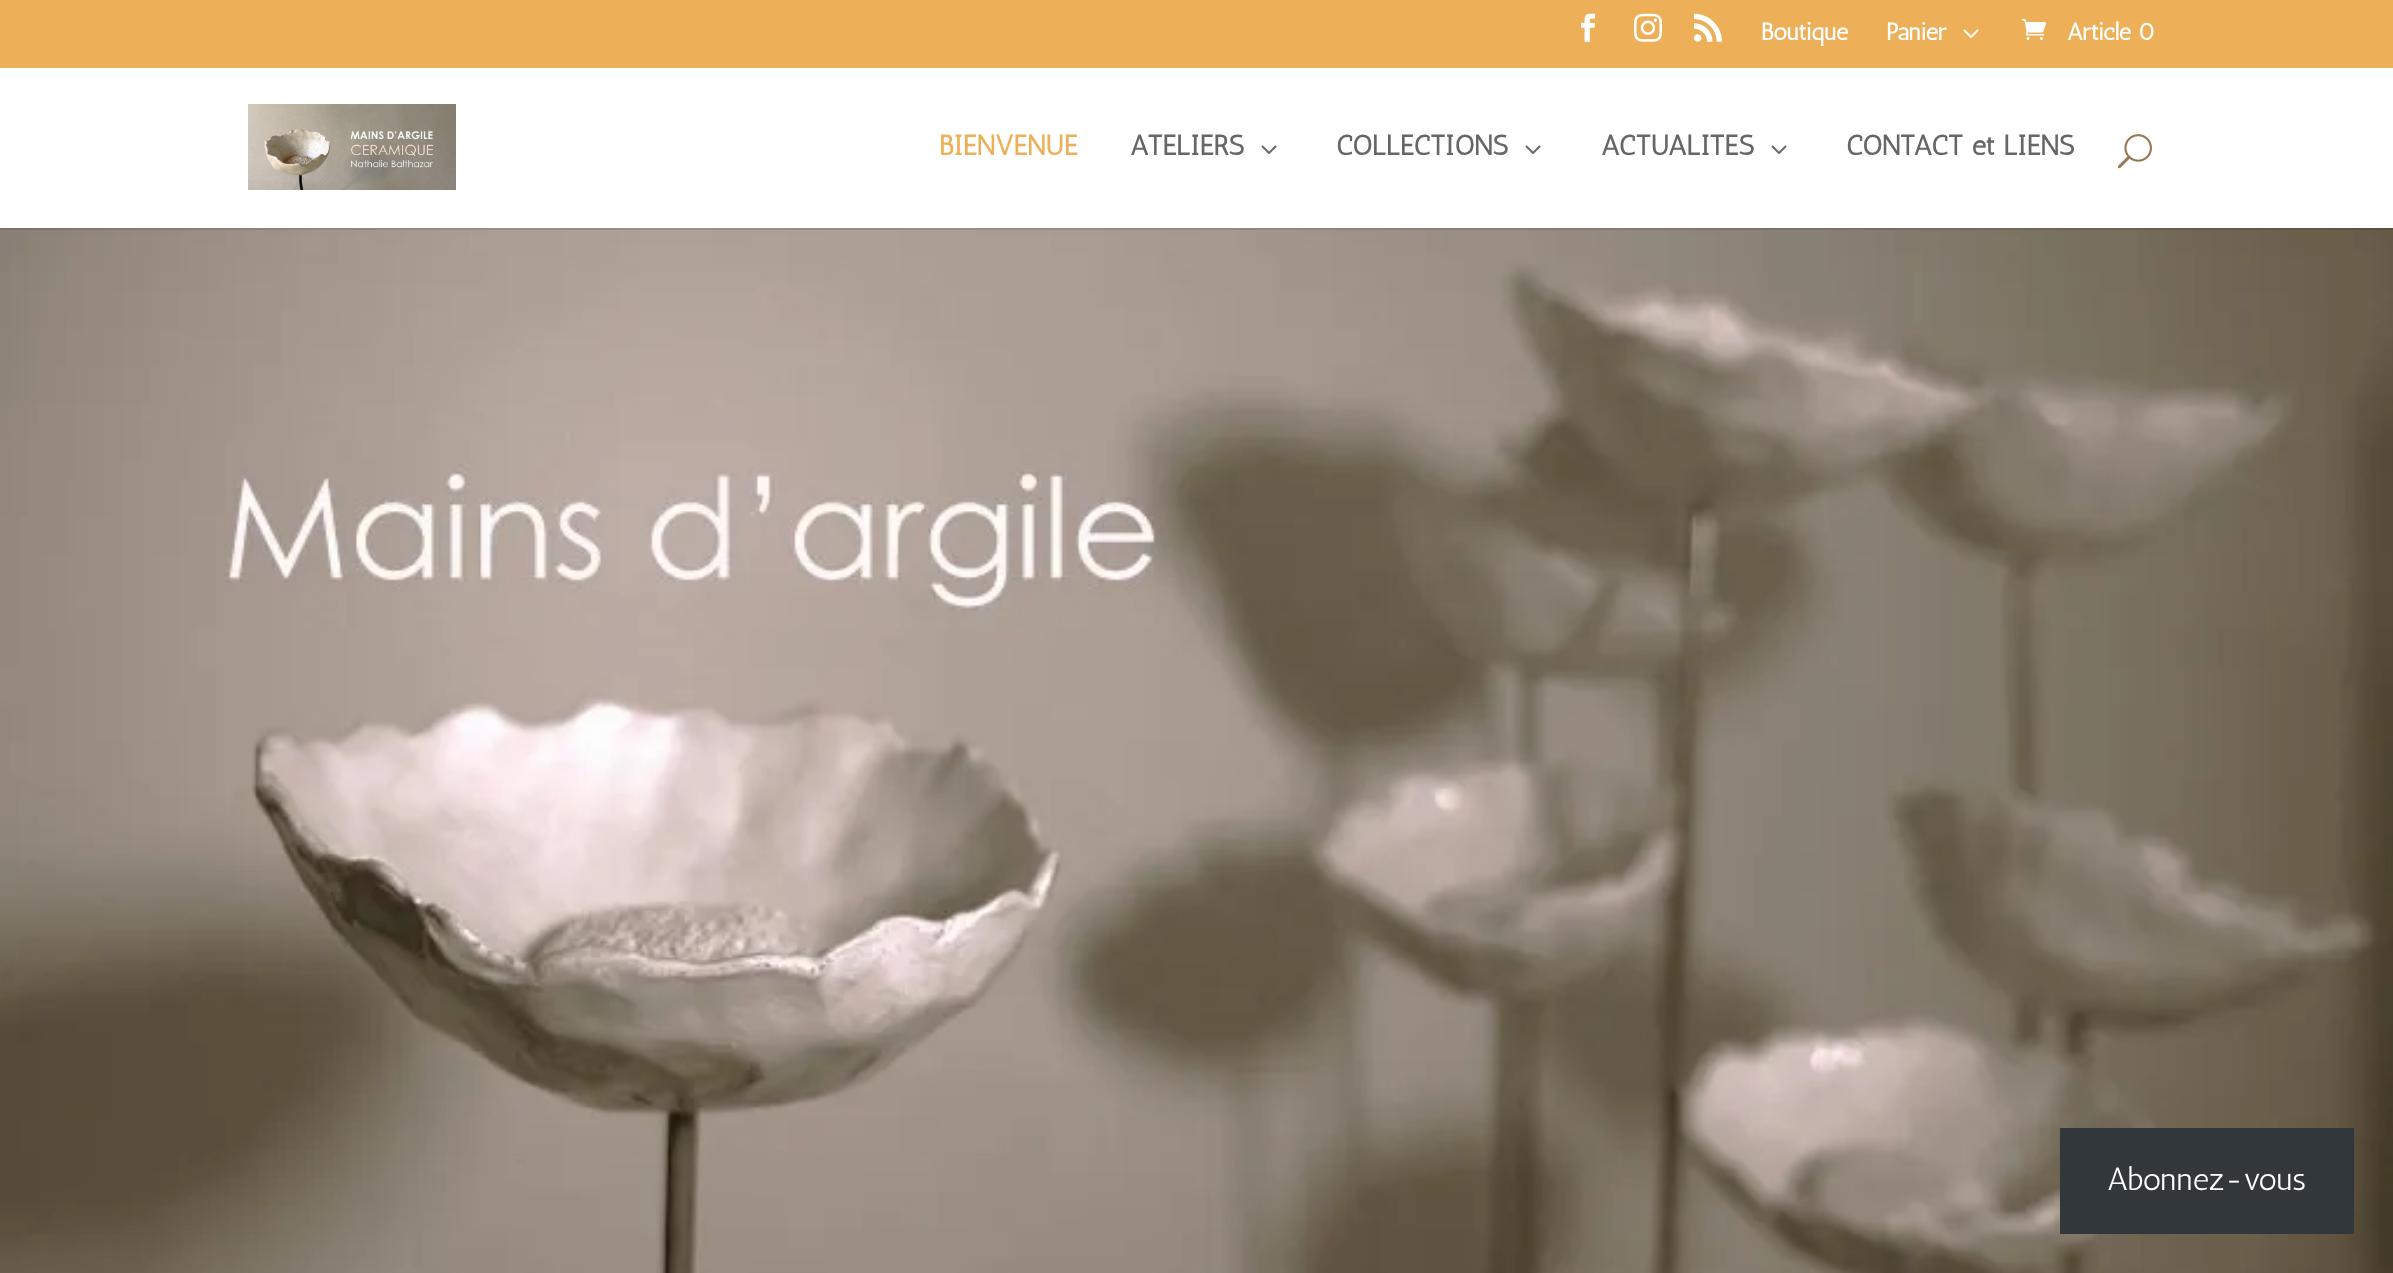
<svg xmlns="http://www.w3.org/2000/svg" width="2393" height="1273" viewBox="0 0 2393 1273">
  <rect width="100%" height="100%" fill="#fff"/>
  <path d="M0 0h2393v68H0z" fill="#edb059"/>
  <image x="1581" y="13" width="15" height="29" href="img/1.png"/>
  <image x="1634" y="13" width="28" height="29" href="img/2.png"/>
  <image x="1694" y="13" width="28" height="29" href="img/3.png"/>
  <image x="1963" y="29" width="16" height="9" href="img/4.png"/>
  <image x="2022" y="19" width="24" height="21" href="img/5.png"/>
  <image x="0" y="228" width="2393" height="1045" href="img/9.png"/>
  <path d="M0 228h2393v2H0z" fill="#0000001a"/>
  <image x="248" y="104" width="208" height="86" href="img/6.png"/>
  <image x="1261" y="145" width="16" height="9" href="img/7.png"/>
  <image x="1525" y="145" width="16" height="9" href="img/7.png"/>
  <image x="1771" y="145" width="16" height="9" href="img/7.png"/>
  <image x="2117" y="134" width="35" height="35" href="img/8.png"/>
  <path d="M2060 1128h294v106H2060z" fill="#32373c"/>
  <g font-family="Antic" font-size="24" font-weight="bold" fill="#fff">
    <text x="1761" y="40">Boutique</text>
    <text x="1886" y="40">Panier</text>
    <text x="2067" y="40">Article 0</text>
  </g>
  <text x="939" y="155" font-family="Antic" font-size="28" font-weight="bold" fill="#edb059">BIENVENUE</text>
  <g font-family="Antic" font-size="28" font-weight="bold" fill="#666">
    <text x="1130" y="155">ATELIERS</text>
    <text x="1336" y="155">COLLECTIONS</text>
    <text x="1601" y="155">ACTUALITES</text>
    <text x="1846" y="155">CONTACT et LIENS</text>
  </g>
  <text x="2107" y="1190" font-family="Antic" font-size="32" fill="#fff">Abonnez-vous</text>
</svg>
